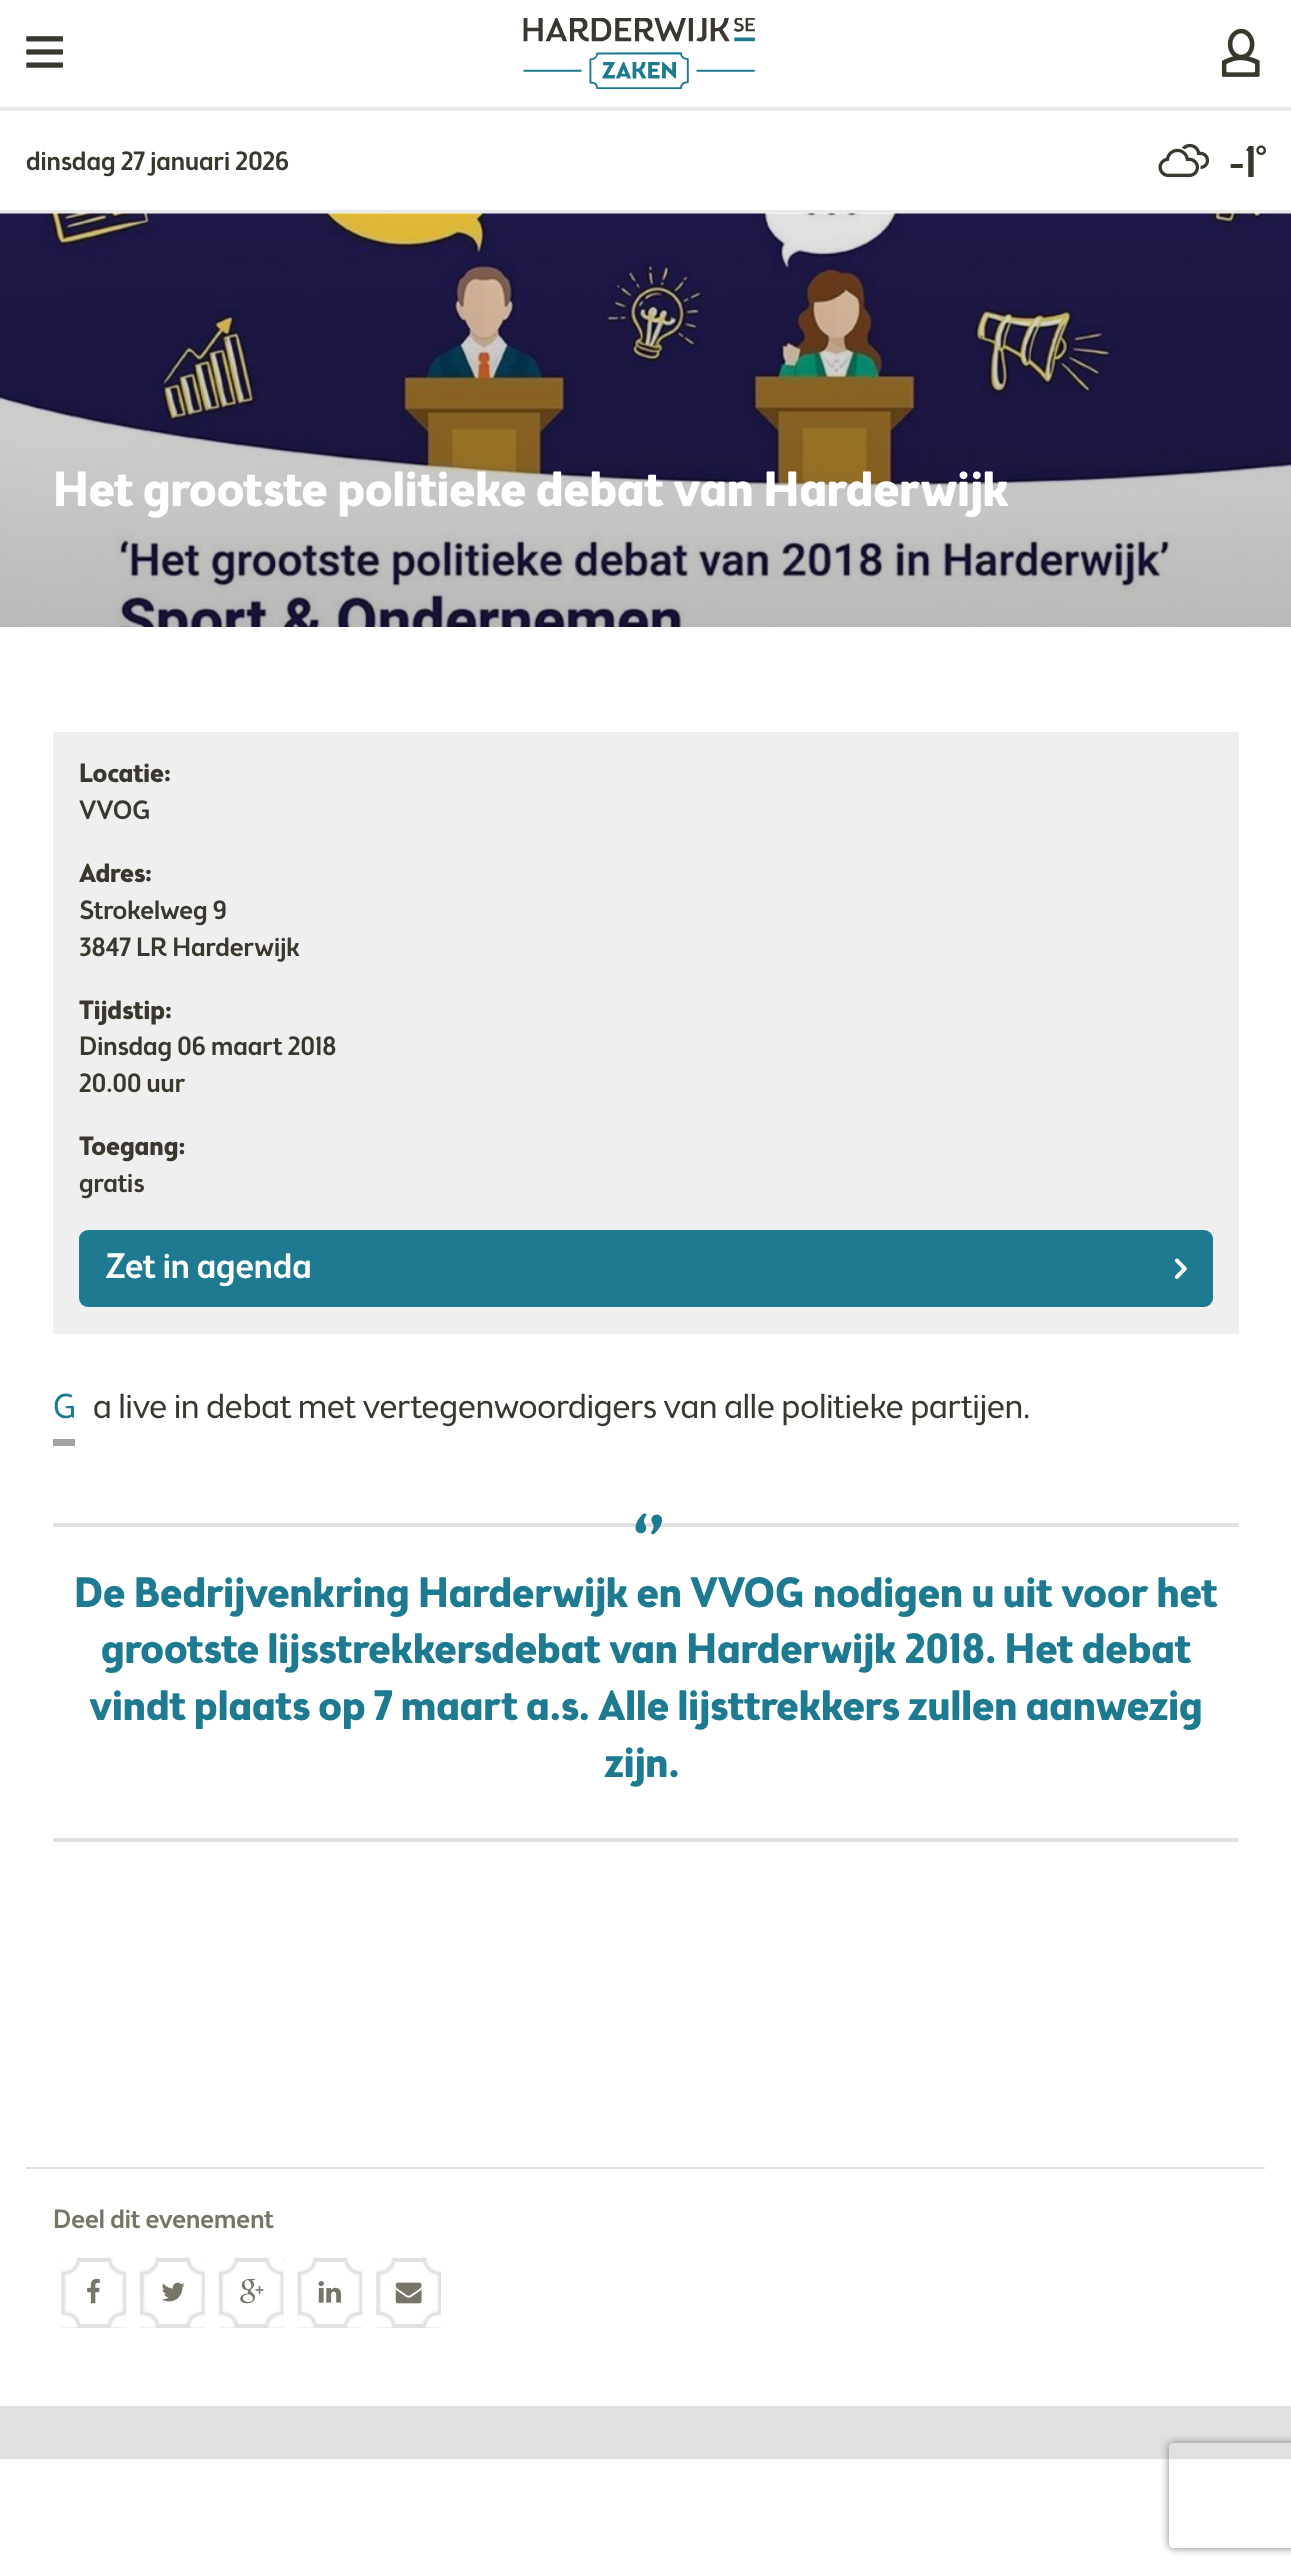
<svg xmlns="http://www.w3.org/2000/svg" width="1291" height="2572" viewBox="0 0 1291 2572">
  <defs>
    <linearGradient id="g1" gradientUnits="userSpaceOnUse" x1="646" y1="213" x2="646" y2="809"><stop offset="0" stop-color="#000" stop-opacity="0.06"/><stop offset="1" stop-color="#000" stop-opacity="0.3"/></linearGradient>
    <clipPath id="clip1"><path d="M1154 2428H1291V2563H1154ZM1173 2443H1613C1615 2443 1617 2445 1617 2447V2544C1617 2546 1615 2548 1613 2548H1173C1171 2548 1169 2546 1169 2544V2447C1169 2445 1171 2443 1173 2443Z" clip-rule="evenodd"/></clipPath>
  </defs>
  <rect width="100%" height="100%" fill="#fff"/>
  <path d="M0 210h1291v4H0z" fill="#e9e9e9"/>
  <image x="26" y="36" width="37" height="32" href="img/1.png"/>
  <image x="523" y="18" width="232" height="71" href="img/2.png"/>
  <image x="1221" y="28" width="39" height="49" href="img/3.png"/>
  <path d="M0 107h1291v4H0z" fill="#e9e9e9"/>
  <image x="1158" y="143" width="52" height="35" href="img/4.png"/>
  <image x="0" y="213" width="1291" height="414" href="img/5.png"/>
  <path d="M0 214h1291v413H0z" fill="url(#g1)"/>
  <path d="M0 2406h1291v53H0z" fill="#e0e0e0"/>
  <path d="M53 732h1186v602H53z" fill="#f0efef"/>
  <rect x="79" y="1230" width="1134" height="77" rx="9" fill="#1e7a90"/>
  <image x="1174" y="1258" width="13" height="21" href="img/6.png"/>
  <path d="M53 1439h22v7H53z" fill="#a5a4a1"/>
  <path d="M53 1523h1186v4H53z" fill="#e2e1e1"/>
  <path d="M53 1838h1186v4H53z" fill="#e2e1e1"/>
  <path d="M26 2167h1239v2H26z" fill="#e2e1e1"/>
  <path d="M61 2258h46v4H61z" fill="#e2e1e1"/>
  <path d="M61 2324h65v4H61z" fill="#e2e1e1"/>
  <image x="61" y="2257" width="20" height="71" href="img/7.png"/>
  <image x="87" y="2278" width="13" height="26" href="img/8.png"/>
  <image x="107" y="2257" width="19" height="71" href="img/9.png"/>
  <path d="M159 2258h46v4H159z" fill="#e2e1e1"/>
  <path d="M140 2324h65v4H140z" fill="#e2e1e1"/>
  <image x="140" y="2257" width="20" height="71" href="img/10.png"/>
  <image x="162" y="2282" width="23" height="20" href="img/11.png"/>
  <image x="185" y="2257" width="20" height="71" href="img/12.png"/>
  <path d="M238 2258h46v4H238z" fill="#e2e1e1"/>
  <path d="M219 2324h65v4H219z" fill="#e2e1e1"/>
  <image x="218" y="2257" width="20" height="71" href="img/13.png"/>
  <image x="240" y="2278" width="24" height="26" href="img/14.png"/>
  <image x="264" y="2257" width="20" height="71" href="img/15.png"/>
  <path d="M316 2258h27v4H316z" fill="#e2e1e1"/>
  <path d="M298 2324h64v4H298z" fill="#e2e1e1"/>
  <image x="297" y="2257" width="20" height="71" href="img/16.png"/>
  <image x="318" y="2281" width="23" height="22" href="img/17.png"/>
  <image x="343" y="2257" width="20" height="71" href="img/18.png"/>
  <path d="M376 2258h46v4H376z" fill="#e2e1e1"/>
  <path d="M376 2324h65v4H376z" fill="#e2e1e1"/>
  <image x="395" y="2282" width="27" height="22" href="img/20.png"/>
  <image x="376" y="2257" width="20" height="71" href="img/19.png"/>
  <image x="421" y="2257" width="20" height="71" href="img/21.png"/>
  <g clip-path="url(#clip1)">
    <rect x="1169" y="2443" width="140" height="105" rx="4" fill="#808080" filter="blur(4.5px)"/>
  </g>
  <text x="26" y="170" font-family="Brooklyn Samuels" font-size="26.25" font-weight="500" fill="#3a372f">dinsdag 27 januari 2026</text>
  <text x="1229" y="177" font-family="Brooklyn Samuels" font-size="44" font-weight="500" fill="#3a372f">-1°</text>
  <text x="53" y="506" font-family="Brooklyn Samuels" font-size="49" font-weight="bold" fill="#fff">Het grootste politieke debat van Harderwijk</text>
  <text x="79" y="782" font-family="Brooklyn Samuels" font-size="26.25" font-weight="bold" fill="#3a372f">Locatie:</text>
  <text x="79" y="819" font-family="Brooklyn Samuels" font-size="26.25" font-weight="500" fill="#3a372f">VVOG</text>
  <text x="79" y="882" font-family="Brooklyn Samuels" font-size="26.25" font-weight="bold" fill="#3a372f">Adres:</text>
  <g font-family="Brooklyn Samuels" font-size="26.25" font-weight="500" fill="#3a372f">
    <text x="79" y="919">Strokelweg 9</text>
    <text x="79" y="956">3847 LR Harderwijk</text>
  </g>
  <text x="79" y="1019" font-family="Brooklyn Samuels" font-size="26.25" font-weight="bold" fill="#3a372f">Tijdstip:</text>
  <g font-family="Brooklyn Samuels" font-size="26.25" font-weight="500" fill="#3a372f">
    <text x="79" y="1055">Dinsdag 06 maart 2018</text>
    <text x="79" y="1092">20.00 uur</text>
  </g>
  <text x="79" y="1155" font-family="Brooklyn Samuels" font-size="26.25" font-weight="bold" fill="#3a372f">Toegang:</text>
  <text x="79" y="1192" font-family="Brooklyn Samuels" font-size="26.25" font-weight="500" fill="#3a372f">gratis</text>
  <text x="105" y="1278" font-family="Brooklyn Samuels" font-size="35" font-weight="500" fill="#fff">Zet in agenda</text>
  <text x="53" y="1418" font-family="Brooklyn Samuels" font-size="34.2" font-weight="300" fill="#1e7a90">G</text>
  <text x="93" y="1418" font-family="Brooklyn Samuels" font-size="34.2" font-weight="300" fill="#3a372f">a live in debat met vertegenwoordigers van alle politieke partijen.</text>
  <text x="631" y="1594" font-family="Brooklyn Samuels" font-size="112" font-weight="300" letter-spacing="-5" fill="#1e7a90">‘’</text>
  <g font-family="Brooklyn Samuels" font-size="42" font-weight="bold" fill="#1e7a90">
    <text x="74" y="1607">De Bedrijvenkring Harderwijk en VVOG nodigen u uit voor het</text>
    <text x="101" y="1663">grootste lijsstrekkersdebat van Harderwijk 2018. Het debat</text>
    <text x="89" y="1720">vindt plaats op 7 maart a.s. Alle lijsttrekkers zullen aanwezig</text>
    <text x="604" y="1777">zijn.</text>
  </g>
  <text x="53" y="2228" font-family="Brooklyn Samuels" font-size="26.25" font-weight="500" fill="#797468">Deel dit evenement</text>
</svg>
